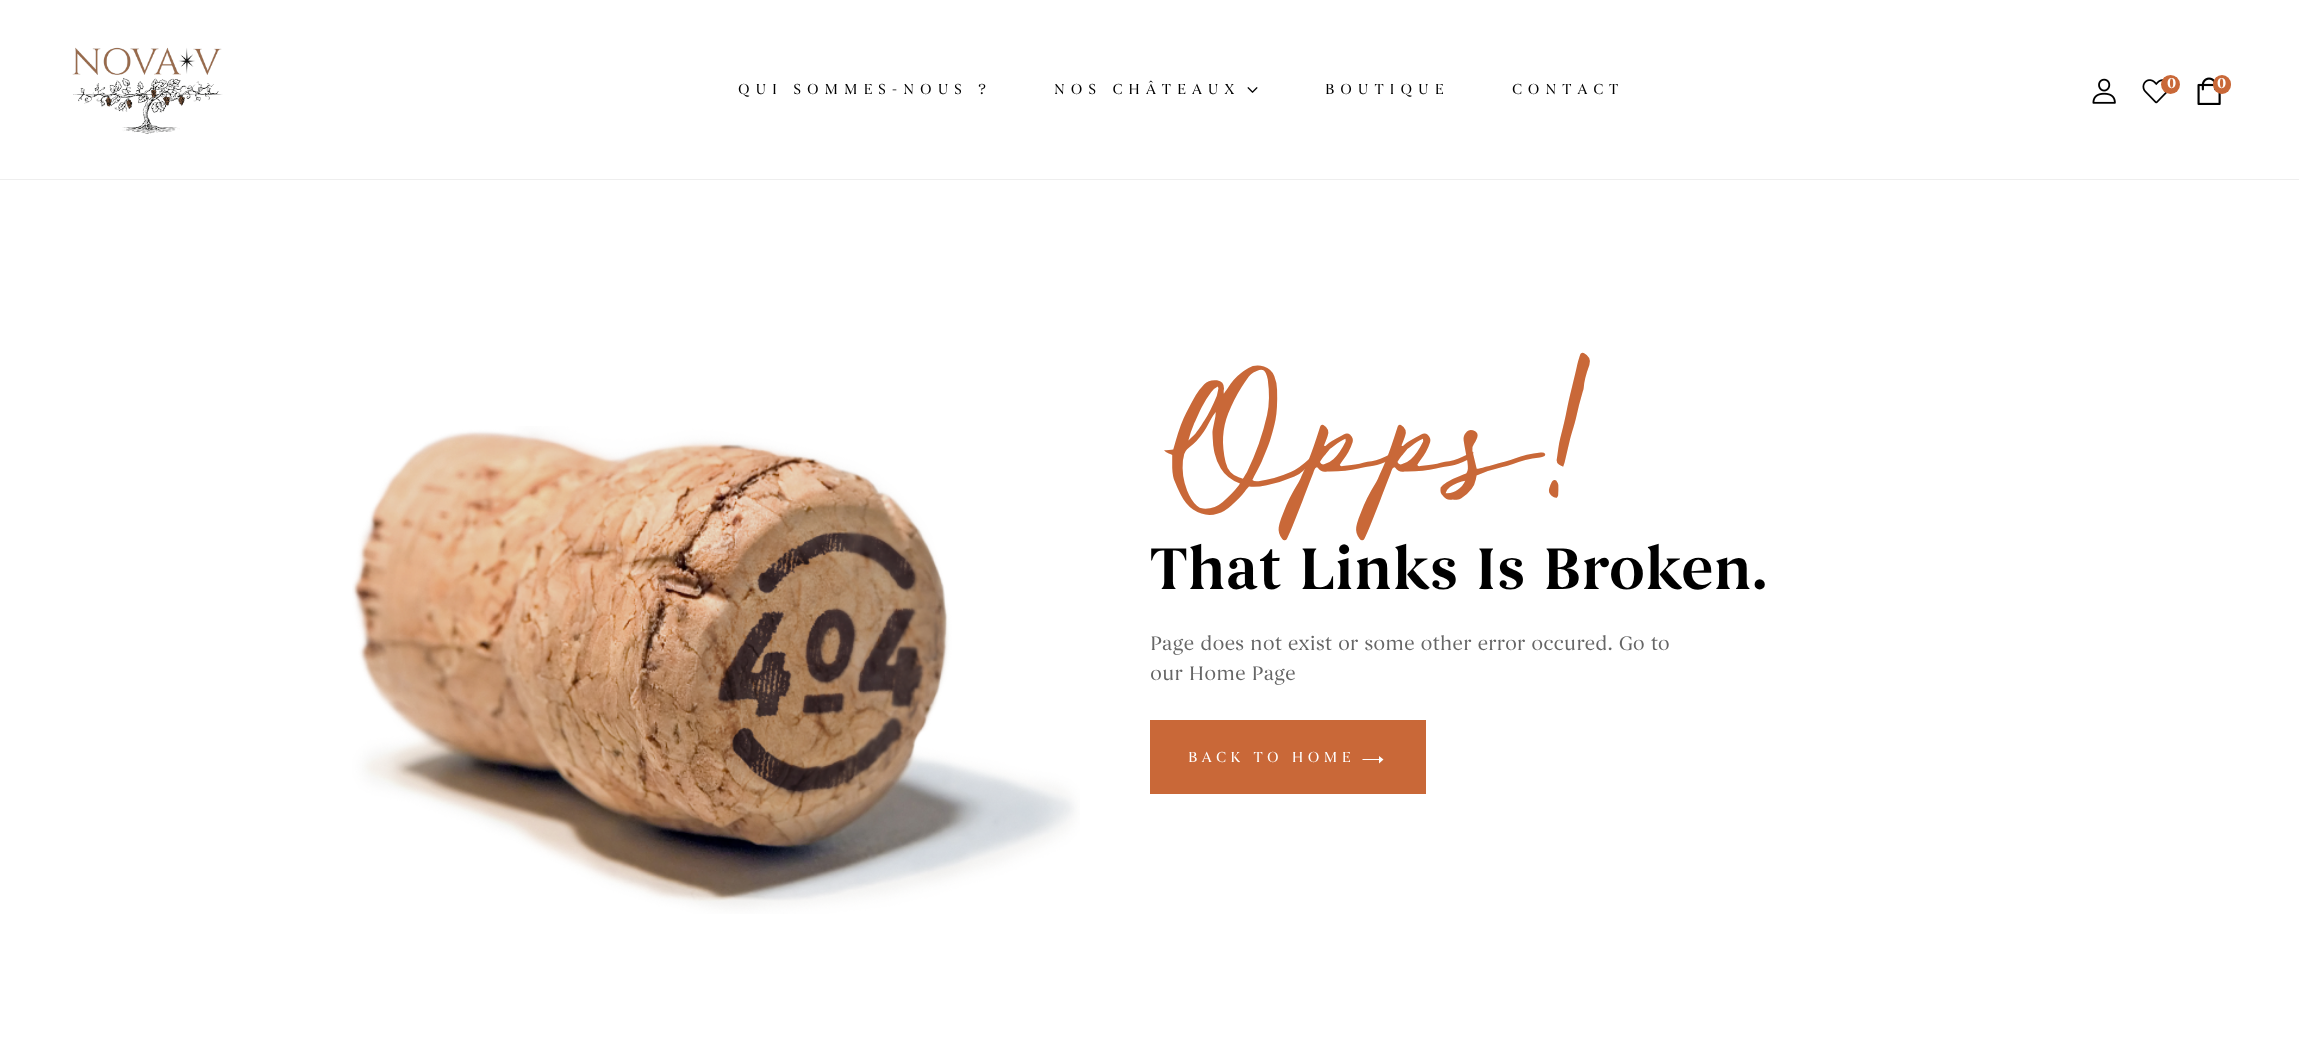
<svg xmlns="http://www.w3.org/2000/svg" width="2299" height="1048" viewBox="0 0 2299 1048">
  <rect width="100%" height="100%" fill="#fff"/>
  <path d="M0 179h2299v1H0z" fill="#eee"/>
  <image x="72" y="47" width="151" height="87" href="img/1.png"/>
  <image x="1247" y="87" width="11" height="6" href="img/2.png"/>
  <image x="2092" y="78" width="24" height="26" href="img/3.png"/>
  <image x="2142" y="79" width="25" height="25" href="img/4.png"/>
  <circle cx="2170.5" cy="84.5" r="9.5" fill="#c96838"/>
  <image x="2197" y="77" width="24" height="28" href="img/5.png"/>
  <rect x="2213" y="75" width="18" height="19" rx="9" fill="#c96838"/>
  <image x="352" y="426" width="728" height="488" href="img/6.png"/>
  <path d="M1150 720h276v74H1150z" fill="#c96838"/>
  <path d="M1379 756V759H1362.5V760H1379V763.5L1383.5 759.5Z" fill="#fff"/>
  <g font-family="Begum" font-size="15" letter-spacing="6" fill="#000">
    <text x="738" y="94">QUI SOMMES-NOUS ?</text>
    <text x="1054" y="94">NOS CHÂTEAUX</text>
    <text x="1325" y="94">BOUTIQUE</text>
    <text x="1512" y="94">CONTACT</text>
  </g>
  <g font-family="Begum" font-size="15" font-weight="600" fill="#fff">
    <text x="2167" y="88">0</text>
    <text x="2217" y="88">0</text>
  </g>
  <text x="1150" y="482" font-family="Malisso" font-size="175" fill="#c96838">Opps!</text>
  <text x="1150" y="589" font-family="Begum" font-size="60" font-weight="600" fill="#000">That Links Is Broken.</text>
  <g font-family="Begum" font-size="20" fill="#666">
    <text x="1150" y="650">Page does not exist or some other error occured. Go to</text>
    <text x="1150" y="680">our Home Page</text>
  </g>
  <text x="1188" y="762" font-family="Begum" font-size="15" letter-spacing="4.4" fill="#fff">BACK TO HOME</text>
</svg>
